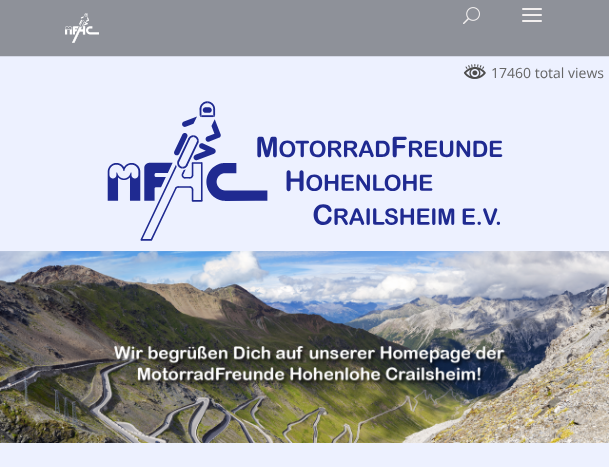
<svg xmlns="http://www.w3.org/2000/svg" width="609" height="467" viewBox="0 0 609 467">
  <rect width="100%" height="100%" fill="#edf1ff"/>
  <path d="M0 56h609v1H0z" fill="#d5d9e6"/>
  <path d="M0 0h609v56H0z" fill="#8e9199"/>
  <image x="65" y="13" width="34" height="30" href="img/1.png"/>
  <image x="463" y="7" width="17" height="17" href="img/2.png"/>
  <image x="522" y="8" width="20" height="14" href="img/3.png"/>
  <image x="463" y="64" width="23" height="15" href="img/4.png"/>
  <image x="107" y="101" width="396" height="140" href="img/5.png"/>
  <image x="0" y="251" width="609" height="192" href="img/6.png"/>
  <text x="491" y="78" font-family="Open Sans" font-size="14" fill="#666">17460 total views</text>
</svg>
